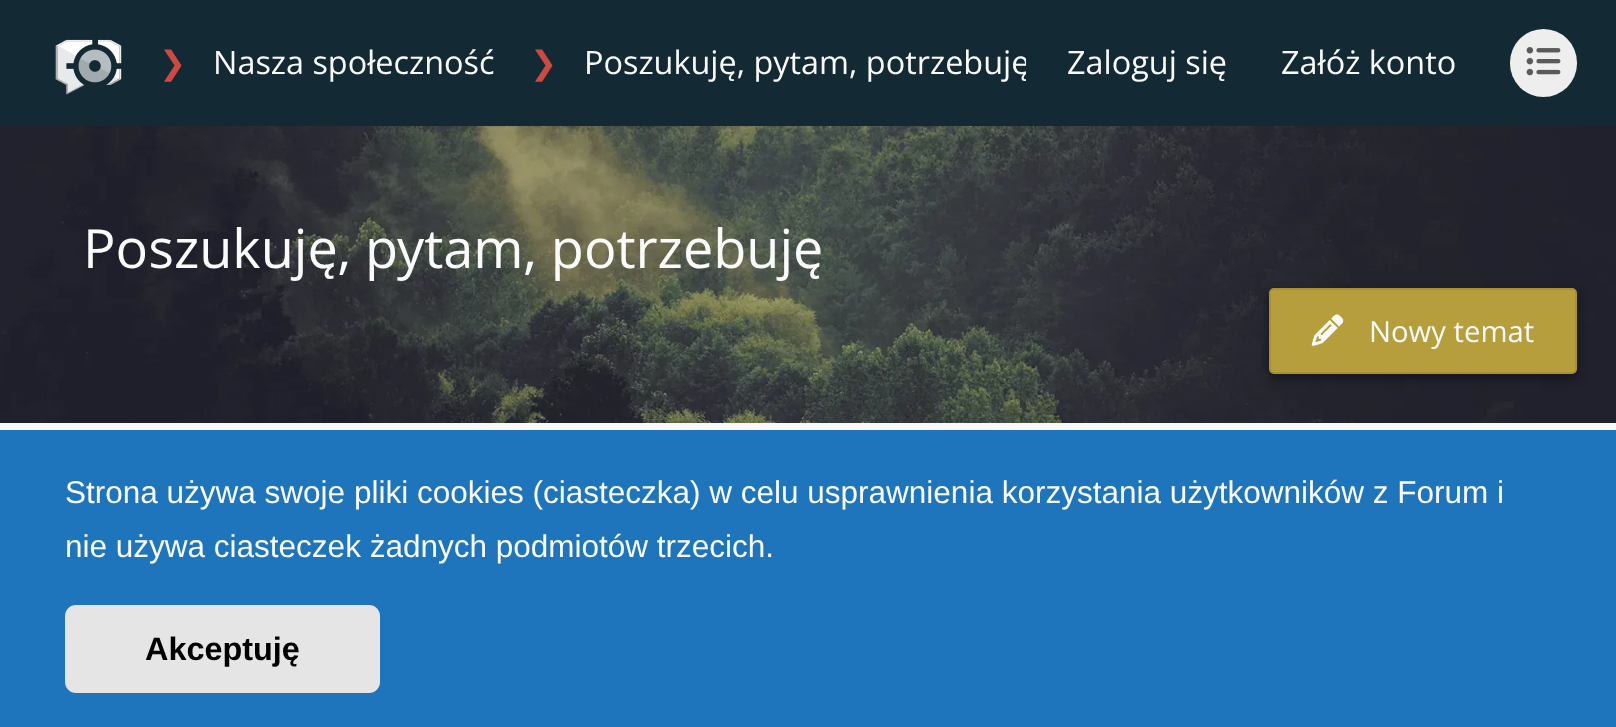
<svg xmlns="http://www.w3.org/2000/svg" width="1616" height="727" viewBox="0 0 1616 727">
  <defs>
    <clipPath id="clip1"><path d="M124 0h902v126H124z"/></clipPath>
  </defs>
  <rect width="100%" height="100%" fill="#f8f8f8"/>
  <path d="M0 0h1616v126H0z" fill="#132934"/>
  <image x="55" y="39" width="67" height="56" href="img/1.png"/>
  <rect x="1510" y="29" width="67" height="68" rx="33.5" fill="#eee"/>
  <image x="1526" y="47" width="35" height="29" href="img/2.png"/>
  <image x="0" y="126" width="1616" height="297" href="img/3.png"/>
  <rect x="1269" y="293" width="308" height="85" rx="5" fill="#0000006b" filter="blur(5.5px)"/>
  <rect x="1270" y="289" width="306" height="84" rx="4" fill="#b69e3c" stroke="#a99133" stroke-width="2"/>
  <image x="1311" y="314" width="33" height="32" href="img/4.png"/>
  <path d="M0 430h1616v297H0z" fill="#1e75bb"/>
  <rect x="65" y="605" width="315" height="88" rx="11" fill="#e5e5e5"/>
  <text x="159" y="74" font-family="DejaVu Sans" font-size="32.4" fill="#cb4b42">❯</text>
  <text x="213" y="74" font-family="Open Sans" font-size="32.4" fill="#fafafa">Nasza społeczność</text>
  <text x="530" y="74" font-family="DejaVu Sans" font-size="32.4" fill="#cb4b42">❯</text>
  <g clip-path="url(#clip1)">
    <text x="584" y="74" font-family="Open Sans" font-size="32.4" fill="#fafafa">Poszukuję, pytam, potrzebuję</text>
  </g>
  <g font-family="Open Sans" font-size="32.4" fill="#fafafa">
    <text x="1067" y="74">Zaloguj się</text>
    <text x="1281" y="74">Załóż konto</text>
  </g>
  <text x="83" y="268" font-family="'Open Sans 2'" font-size="54" fill="#fafafa">Poszukuję, pytam, potrzebuję</text>
  <text x="1369" y="342" font-family="Open Sans" font-size="29.25" fill="#fafafa">Nowy temat</text>
  <g font-family="Liberation Sans" font-size="31.5" fill="#fafafa">
    <text x="65" y="503">Strona używa swoje pliki cookies (ciasteczka) w celu usprawnienia korzystania użytkowników z Forum i</text>
    <text x="65" y="557">nie używa ciasteczek żadnych podmiotów trzecich.</text>
  </g>
  <text x="145" y="660" font-family="Liberation Sans" font-size="32.4" font-weight="bold" fill="#000">Akceptuję</text>
</svg>
